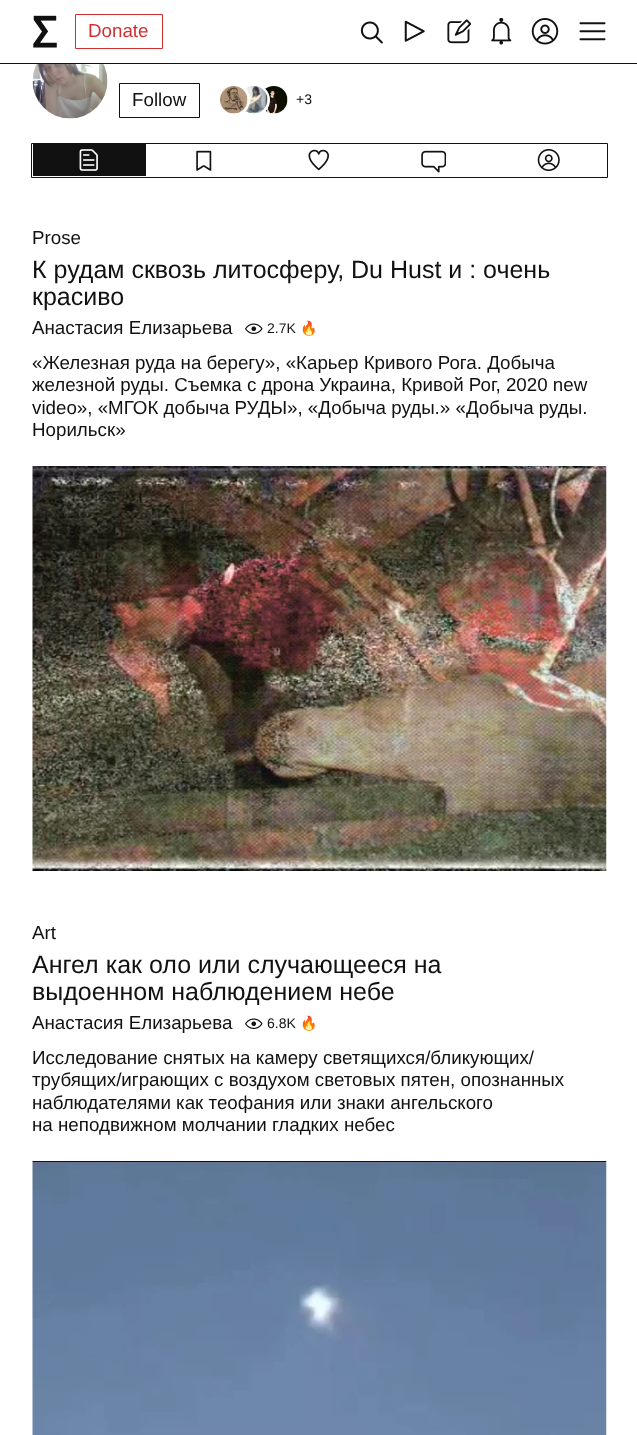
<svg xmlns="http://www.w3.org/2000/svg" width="637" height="1435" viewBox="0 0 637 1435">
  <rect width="100%" height="100%" fill="#fff"/>
  <path d="M0 63h637v1H0z" fill="#111"/>
  <image x="33" y="15" width="24" height="33" href="img/1.png"/>
  <path d="M75.5 14.5h87v34H75.5z" fill="none" stroke="#d23030"/>
  <image x="360" y="21" width="23" height="23" href="img/2.png"/>
  <image x="404" y="20" width="21" height="22" href="img/3.png"/>
  <image x="447" y="19" width="24" height="25" href="img/4.png"/>
  <image x="491" y="18" width="21" height="27" href="img/5.png"/>
  <image x="531" y="18" width="28" height="27" href="img/6.png"/>
  <image x="579" y="22" width="27" height="19" href="img/7.png"/>
  <image x="32" y="64" width="76" height="55" href="img/8.png"/>
  <path d="M119.5 83.5h80v34H119.5z" fill="none" stroke="#111"/>
  <image x="263" y="86" width="25" height="28" href="img/11.png"/>
  <circle cx="254" cy="100" r="14.5" fill="none" stroke="#fff" stroke-width="3"/>
  <image x="243" y="86" width="25" height="28" href="img/10.png"/>
  <circle cx="234" cy="100" r="14.5" fill="none" stroke="#fff" stroke-width="3"/>
  <image x="220" y="86" width="28" height="28" href="img/9.png"/>
  <path d="M31.5 143.5h576v34H31.5z" fill="none" stroke="#111"/>
  <path d="M33 144h113v32H33z" fill="#111"/>
  <image x="79" y="149" width="19" height="22" href="img/12.png"/>
  <image x="196" y="150" width="16" height="21" href="img/13.png"/>
  <image x="308" y="149" width="21" height="22" href="img/14.png"/>
  <image x="421" y="150" width="25" height="23" href="img/15.png"/>
  <image x="537" y="149" width="23" height="22" href="img/16.png"/>
  <image x="245" y="323" width="18" height="11" href="img/17.png"/>
  <image x="32" y="466" width="575" height="405" href="img/18.png"/>
  <image x="245" y="1018" width="18" height="11" href="img/17.png"/>
  <image x="32" y="1161" width="575" height="274" href="img/19.png"/>
  <text x="88" y="37" font-family="Liberation Sans" font-size="18.75" fill="#d23030">Donate</text>
  <text x="132" y="106" font-family="Liberation Sans" font-size="18.75" fill="#111">Follow</text>
  <text x="296" y="104" font-family="Liberation Sans" font-size="14" fill="#111">+3</text>
  <text x="32" y="244" font-family="Liberation Sans" font-size="18.75" fill="#111">Prose</text>
  <g font-family="Liberation Sans" font-size="25" fill="#111">
    <text x="32" y="278">К рудам сквозь литосферу, Du Hust и : очень</text>
    <text x="32" y="305">красиво</text>
  </g>
  <text x="32" y="334" font-family="Liberation Sans" font-size="18.75" fill="#111">Анастасия Елизарьева</text>
  <text x="267" y="333" font-family="Liberation Sans" font-size="14" fill="#111">2.7K</text>
  <text x="300" y="333" font-family="Noto Color Emoji" font-size="14" fill="#111">🔥</text>
  <g font-family="Liberation Sans" font-size="18.75" fill="#111">
    <text x="32" y="369">«Железная руда на берегу», «Карьер Кривого Рога. Добыча</text>
    <text x="32" y="391">железной руды. Съемка с дрона Украина, Кривой Рог, 2020 new</text>
    <text x="32" y="414">video», «МГОК добыча РУДЫ», «Добыча руды.» «Добыча руды.</text>
    <text x="32" y="436">Норильск»</text>
    <text x="32" y="939">Art</text>
  </g>
  <g font-family="Liberation Sans" font-size="25" fill="#111">
    <text x="32" y="973">Ангел как оло или случающееся на</text>
    <text x="32" y="1000">выдоенном наблюдением небе</text>
  </g>
  <text x="32" y="1029" font-family="Liberation Sans" font-size="18.75" fill="#111">Анастасия Елизарьева</text>
  <text x="267" y="1028" font-family="Liberation Sans" font-size="14" fill="#111">6.8K</text>
  <text x="300" y="1028" font-family="Noto Color Emoji" font-size="14" fill="#111">🔥</text>
  <g font-family="Liberation Sans" font-size="18.75" fill="#111">
    <text x="32" y="1064">Исследование снятых на камеру светящихся/бликующих/</text>
    <text x="32" y="1086">трубящих/играющих с воздухом световых пятен, опознанных</text>
    <text x="32" y="1109">наблюдателями как теофания или знаки ангельского</text>
    <text x="32" y="1131">на неподвижном молчании гладких небес</text>
  </g>
</svg>
